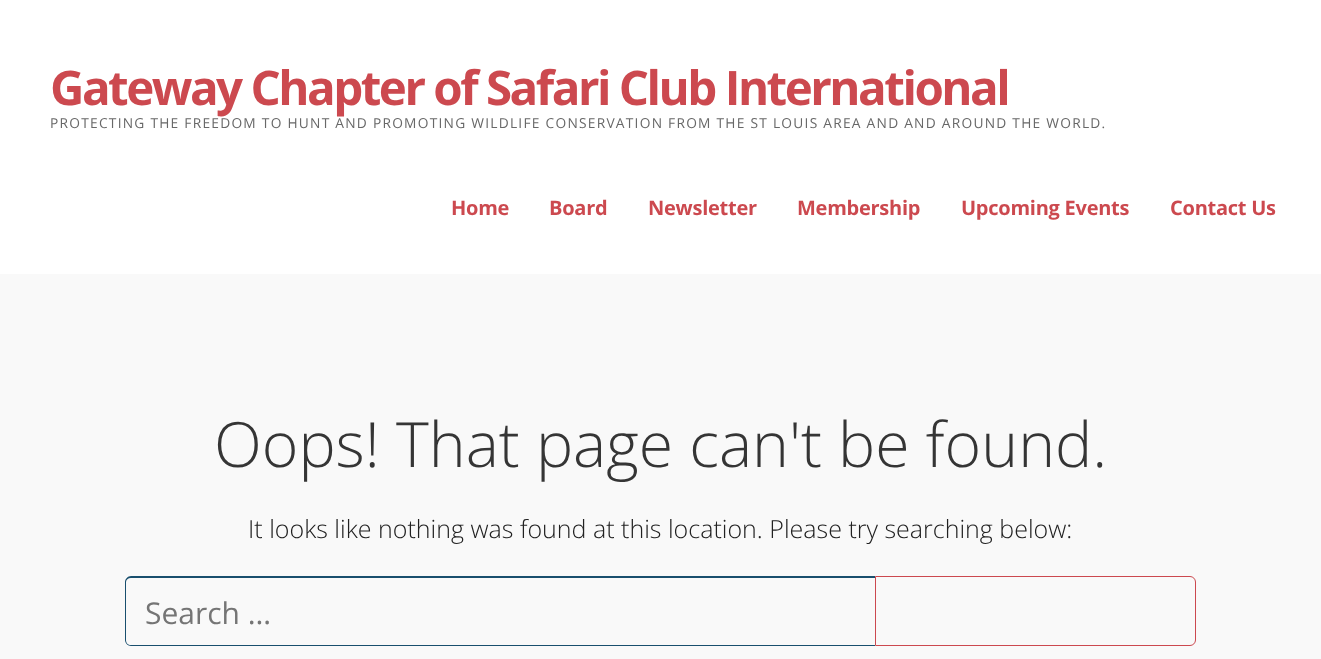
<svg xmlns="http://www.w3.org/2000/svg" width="1321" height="659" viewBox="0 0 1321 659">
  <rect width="100%" height="100%" fill="#fff"/>
  <path d="M0 274h1321v385H0z" fill="#f9f9f9"/>
  <path d="M131 576H875V646H131C128 646 125 643 125 640V582C125 579 128 576 131 576ZM131 578H875V645H131C128 645 126 643 126 640V582C126 580 128 578 131 578Z" fill="#194f6e" fill-rule="evenodd"/>
  <path d="M875.5 576.5H1190C1193 576.5 1195.5 579 1195.5 582V640C1195.5 643 1193 645.5 1190 645.5H875.5Z" fill="none" stroke="#cc494f"/>
  <text x="50" y="105" font-family="Open Sans" font-size="47.5" font-weight="bold" letter-spacing="-2.5" fill="#cc494f">Gateway Chapter of Safari Club International</text>
  <text x="50" y="128" font-family="Open Sans" font-size="13.75" letter-spacing="1.25" fill="#686868">PROTECTING THE FREEDOM TO HUNT AND PROMOTING WILDLIFE CONSERVATION FROM THE ST LOUIS AREA AND AND AROUND THE WORLD.</text>
  <g font-family="Open Sans" font-size="20" font-weight="bold" letter-spacing="-0.25" fill="#cc494f">
    <text x="451" y="215">Home</text>
    <text x="549" y="215">Board</text>
    <text x="648" y="215">Newsletter</text>
    <text x="797" y="215">Membership</text>
    <text x="961" y="215">Upcoming Events</text>
    <text x="1170" y="215">Contact Us</text>
  </g>
  <text x="214" y="467" font-family="Open Sans" font-size="62.5" font-weight="300" fill="#353535">Oops! That page can't be found.</text>
  <text x="248" y="538" font-family="Open Sans" font-size="25" font-weight="300" fill="#212121">It looks like nothing was found at this location. Please try searching below:</text>
  <text x="145" y="624" font-family="Open Sans" font-size="30" fill="#757575">Search …</text>
</svg>
